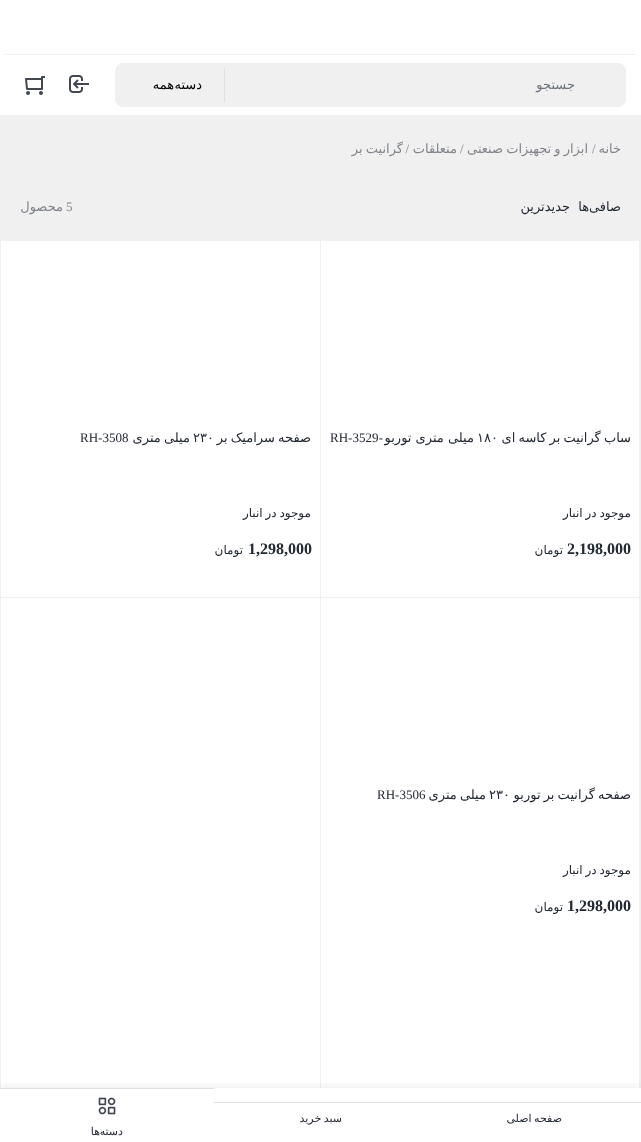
<svg xmlns="http://www.w3.org/2000/svg" width="641" height="1142" viewBox="0 0 641 1142">
  <defs>
    <clipPath id="clip1"><path d="M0 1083h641v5H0z"/></clipPath>
  </defs>
  <rect width="100%" height="100%" fill="#f0f0f1"/>
  <path d="M0 0h641v115H0z" fill="#fff"/>
  <path d="M5 54h631v1H5z" fill="#f0f0f1"/>
  <rect x="115.5" y="63.5" width="510" height="43" rx="7.5" fill="#f0f0f1" stroke="#f0f0f1"/>
  <path d="M224 68h1v34H224z" fill="#e0e0e2"/>
  <image x="69" y="75" width="20" height="18" href="img/1.png"/>
  <image x="25" y="76" width="20" height="19" href="img/2.png"/>
  <path d="M321 241h318v356H321z" fill="#fff"/>
  <path d="M1 241h319v356H1z" fill="#fff"/>
  <path d="M321 598h318v544H321z" fill="#fff"/>
  <path d="M1 598h319v544H1z" fill="#fff"/>
  <g clip-path="url(#clip1)">
    <path d="M0 1084h641v54H0z" fill="#0000000d" filter="blur(4px)"/>
  </g>
  <path d="M0 1088h641v54H0z" fill="#fffffff2"/>
  <path d="M214 1102h427v1H214z" fill="#e0e0e2"/>
  <path d="M0 1088h214v1H0z" fill="#e0e0e2"/>
  <image x="98" y="1097" width="18" height="18" href="img/3.png"/>
  <text x="575" y="89" font-family="DejaVu Sans" font-size="13" direction="rtl" fill="#6c757d">جستجو</text>
  <g font-family="DejaVu Sans" font-size="13" direction="rtl" fill="#000">
    <text x="202" y="89">دسته</text>
    <text x="174" y="89">همه</text>
  </g>
  <text x="621" y="153" font-family="DejaVu Sans" font-size="13" direction="rtl" fill="#81858b">خانه</text>
  <text x="592" y="153" font-family="Liberation Serif" font-size="13" fill="#81858b">/</text>
  <text x="588" y="153" word-spacing="-1" font-family="DejaVu Sans" font-size="13" direction="rtl" fill="#81858b">ابزار و تجهیزات صنعتی</text>
  <text x="460" y="153" font-family="Liberation Serif" font-size="13" fill="#81858b">/</text>
  <text x="457" y="153" font-family="DejaVu Sans" font-size="13" direction="rtl" fill="#81858b">متعلقات</text>
  <text x="409" y="153" font-family="Liberation Serif" font-size="13" direction="rtl" fill="#81858b">/</text>
  <text x="403" y="153" word-spacing="-1" font-family="DejaVu Sans" font-size="13" direction="rtl" fill="#81858b">گرانیت بر</text>
  <g font-family="DejaVu Sans" font-size="13" direction="rtl" fill="#232933">
    <text x="621" y="211">صافی</text>
    <text x="589" y="211">ها</text>
    <text x="570" y="211">جدیدترین</text>
  </g>
  <text x="66" y="211" font-family="Liberation Serif" font-size="13" fill="#81858b">5</text>
  <text x="63" y="211" font-family="DejaVu Sans" font-size="13" direction="rtl" fill="#81858b">محصول</text>
  <text x="631" y="442" word-spacing="-1" font-family="DejaVu Sans" font-size="13" direction="rtl" fill="#232933">ساب گرانیت بر کاسه ای</text>
  <text x="477" y="442" font-family="DejaVu Sans" font-size="13" fill="#232933">۱۸۰</text>
  <text x="474" y="442" font-family="DejaVu Sans" font-size="13" direction="rtl" fill="#232933">میلی متری توربو</text>
  <text x="383" y="442" font-family="Liberation Serif" font-size="13" direction="rtl" fill="#232933">-</text>
  <text x="330" y="442" font-family="Liberation Serif" font-size="13" fill="#232933">RH-3529</text>
  <text x="631" y="517" word-spacing="-1" font-family="DejaVu Sans" font-size="12" direction="rtl" fill="#232933">موجود در انبار</text>
  <text x="567" y="554" font-family="Liberation Serif" font-size="16" font-weight="bold" fill="#232933">2,198,000</text>
  <text x="563" y="554" font-family="DejaVu Sans" font-size="12" direction="rtl" fill="#232933">تومان</text>
  <text x="311" y="442" word-spacing="-1" font-family="DejaVu Sans" font-size="13" direction="rtl" fill="#232933">صفحه سرامیک بر</text>
  <text x="193" y="442" font-family="DejaVu Sans" font-size="13" fill="#232933">۲۳۰</text>
  <text x="190" y="442" word-spacing="-1" font-family="DejaVu Sans" font-size="13" direction="rtl" fill="#232933">میلی متری</text>
  <text x="80" y="442" font-family="Liberation Serif" font-size="13" fill="#232933">RH-3508</text>
  <text x="311" y="517" word-spacing="-1" font-family="DejaVu Sans" font-size="12" direction="rtl" fill="#232933">موجود در انبار</text>
  <text x="248" y="554" font-family="Liberation Serif" font-size="16" font-weight="bold" fill="#232933">1,298,000</text>
  <text x="243" y="554" font-family="DejaVu Sans" font-size="12" direction="rtl" fill="#232933">تومان</text>
  <text x="631" y="799" word-spacing="-1" font-family="DejaVu Sans" font-size="13" direction="rtl" fill="#232933">صفحه گرانیت بر توربو</text>
  <text x="489" y="799" font-family="DejaVu Sans" font-size="13" fill="#232933">۲۳۰</text>
  <text x="486" y="799" word-spacing="-1" font-family="DejaVu Sans" font-size="13" direction="rtl" fill="#232933">میلی متری</text>
  <text x="377" y="799" font-family="Liberation Serif" font-size="13" fill="#232933">RH-3506</text>
  <text x="631" y="874" word-spacing="-1" font-family="DejaVu Sans" font-size="12" direction="rtl" fill="#232933">موجود در انبار</text>
  <text x="567" y="911" font-family="Liberation Serif" font-size="16" font-weight="bold" fill="#232933">1,298,000</text>
  <text x="563" y="911" font-family="DejaVu Sans" font-size="12" direction="rtl" fill="#232933">تومان</text>
  <g font-family="DejaVu Sans" font-size="11" direction="rtl" fill="#232933">
    <text x="562" y="1122" word-spacing="-1">صفحه اصلی</text>
    <text x="342" y="1122" word-spacing="-1">سبد خرید</text>
    <text x="123" y="1135">دسته</text>
    <text x="100" y="1135">ها</text>
  </g>
</svg>
